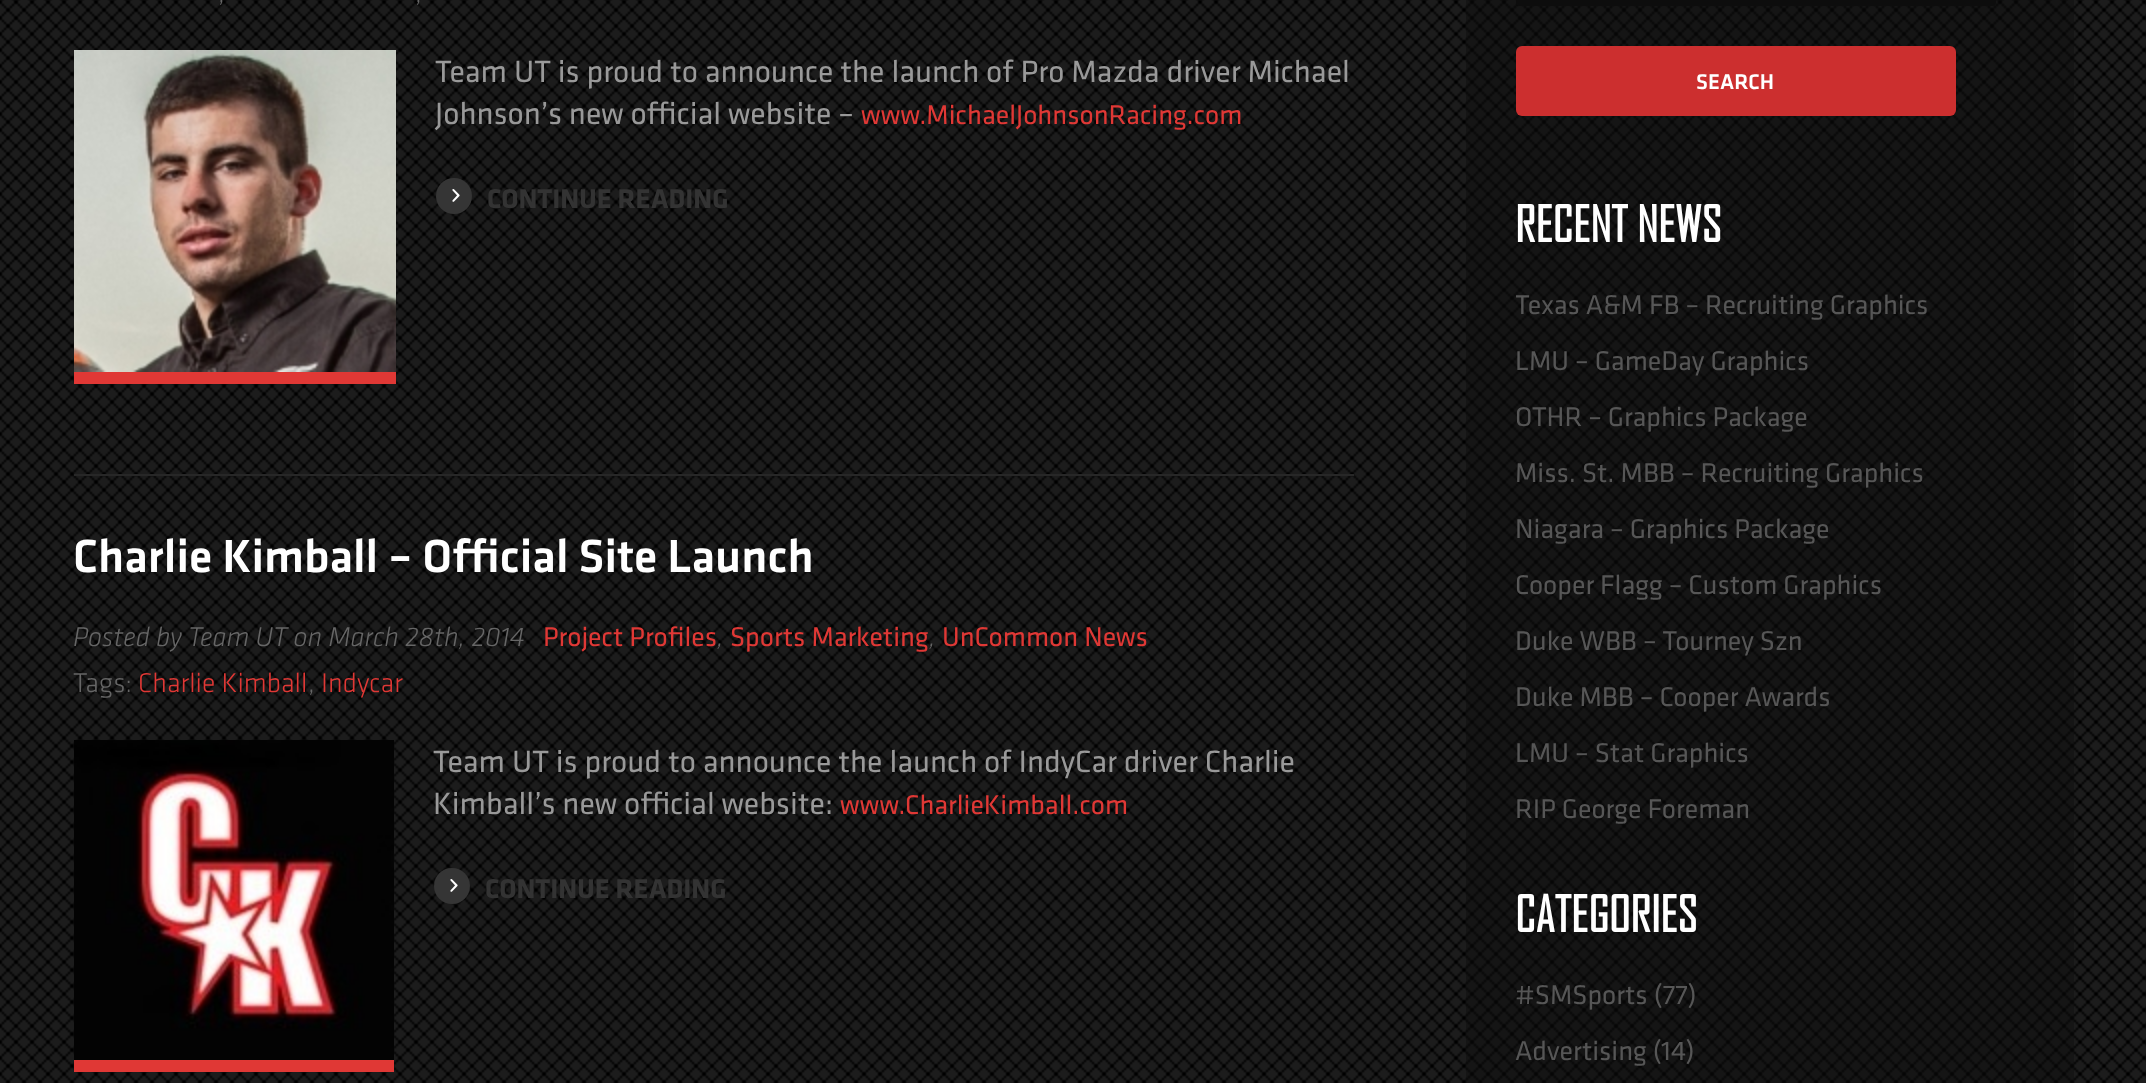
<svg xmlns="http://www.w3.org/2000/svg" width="2146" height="1083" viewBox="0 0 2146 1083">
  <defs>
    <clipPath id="clip1"><path d="M1516 286h468v36H1516z"/></clipPath>
  </defs>
  <rect width="100%" height="100%" fill="#fff"/>
  <image x="0" y="0" width="2146" height="1083" href="img/1.png"/>
  <path d="M74 372h322v12H74z" fill="#e03835"/>
  <image x="74" y="50" width="322" height="322" href="img/2.png"/>
  <circle cx="454" cy="196" r="18" fill="#353535"/>
  <image x="452" y="189" width="8" height="13" href="img/3.png"/>
  <path d="M74 474h1280v2H74z" fill="#272727"/>
  <path d="M74 1060h320v12H74z" fill="#e03835"/>
  <image x="74" y="740" width="320" height="320" href="img/4.png"/>
  <circle cx="452" cy="886" r="18" fill="#353535"/>
  <image x="450" y="879" width="8" height="13" href="img/3.png"/>
  <path d="M1466 0h608v1083H1466z" fill="#0d0d0d75"/>
  <rect x="1516" y="-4" width="480" height="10" rx="4" fill="#0d0d0d"/>
  <rect x="1516" y="46" width="440" height="70" rx="6" fill="#cc2f2f"/>
  <g font-family="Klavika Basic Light" font-size="28" font-weight="300" fill="#666">
    <text x="218" y="2">,</text>
    <text x="415" y="2">,</text>
  </g>
  <g font-family="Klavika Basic" font-size="32" fill="#999">
    <text x="435" y="82">Team UT is proud to announce the launch of Pro Mazda driver Michael</text>
    <text x="435" y="124">Johnson’s new official website –</text>
  </g>
  <text x="861" y="124" font-family="Klavika Basic" font-size="28" fill="#e03835">www.MichaelJohnsonRacing.com</text>
  <text x="487" y="208" font-family="Klavika Basic" font-size="28" font-weight="bold" fill="#333">CONTINUE READING</text>
  <text x="73" y="572" font-family="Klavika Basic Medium" font-size="48" font-weight="500" fill="#fff">Charlie Kimball – Official Site Launch</text>
  <text x="73" y="646" font-family="Klavika Basic Light" font-size="28" font-weight="300" font-style="italic" fill="#666">Posted by Team UT on March 28th, 2014</text>
  <text x="543" y="646" font-family="Klavika Basic" font-size="28" fill="#e03835">Project Profiles</text>
  <text x="717" y="646" font-family="Klavika Basic Light" font-size="28" font-weight="300" font-style="italic" fill="#666">,</text>
  <text x="730" y="646" font-family="Klavika Basic" font-size="28" fill="#e03835">Sports Marketing</text>
  <text x="929" y="646" font-family="Klavika Basic Light" font-size="28" font-weight="300" font-style="italic" fill="#666">,</text>
  <text x="942" y="646" font-family="Klavika Basic" font-size="28" fill="#e03835">UnCommon News</text>
  <text x="73" y="692" font-family="Klavika Basic Light" font-size="28" font-weight="300" fill="#666">Tags:</text>
  <text x="138" y="692" font-family="Klavika Basic Light" font-size="28" font-weight="300" fill="#e03835">Charlie Kimball</text>
  <text x="308" y="692" font-family="Klavika Basic Light" font-size="28" font-weight="300" fill="#666">,</text>
  <text x="321" y="692" font-family="Klavika Basic Light" font-size="28" font-weight="300" fill="#e03835">Indycar</text>
  <g font-family="Klavika Basic" font-size="32" fill="#999">
    <text x="433" y="772">Team UT is proud to announce the launch of IndyCar driver Charlie</text>
    <text x="433" y="814">Kimball’s new official website:</text>
  </g>
  <text x="840" y="814" font-family="Klavika Basic" font-size="28" fill="#e03835">www.CharlieKimball.com</text>
  <text x="485" y="898" font-family="Klavika Basic" font-size="28" font-weight="bold" fill="#333">CONTINUE READING</text>
  <text x="1696" y="89" font-family="Klavika Basic Medium" font-size="22" font-weight="500" fill="#fff">SEARCH</text>
  <text x="1515" y="242" font-family="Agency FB" font-size="48" font-weight="bold" fill="#fff">RECENT NEWS</text>
  <g clip-path="url(#clip1)">
    <text x="1515" y="314" font-family="Klavika Basic" font-size="28" fill="#565656">Texas A&amp;M FB – Recruiting Graphics</text>
  </g>
  <g font-family="Klavika Basic" font-size="28" fill="#565656">
    <text x="1515" y="370">LMU – GameDay Graphics</text>
    <text x="1515" y="426">OTHR – Graphics Package</text>
    <text x="1515" y="482">Miss. St. MBB – Recruiting Graphics</text>
    <text x="1515" y="538">Niagara – Graphics Package</text>
    <text x="1515" y="594">Cooper Flagg – Custom Graphics</text>
    <text x="1515" y="650">Duke WBB – Tourney Szn</text>
    <text x="1515" y="706">Duke MBB – Cooper Awards</text>
    <text x="1515" y="762">LMU – Stat Graphics</text>
    <text x="1515" y="818">RIP George Foreman</text>
  </g>
  <text x="1515" y="932" font-family="Agency FB" font-size="48" font-weight="bold" fill="#fff">CATEGORIES</text>
  <g font-family="Klavika Basic" font-size="28" fill="#565656">
    <text x="1515" y="1004">#SMSports (77)</text>
    <text x="1515" y="1060">Advertising (14)</text>
  </g>
</svg>
